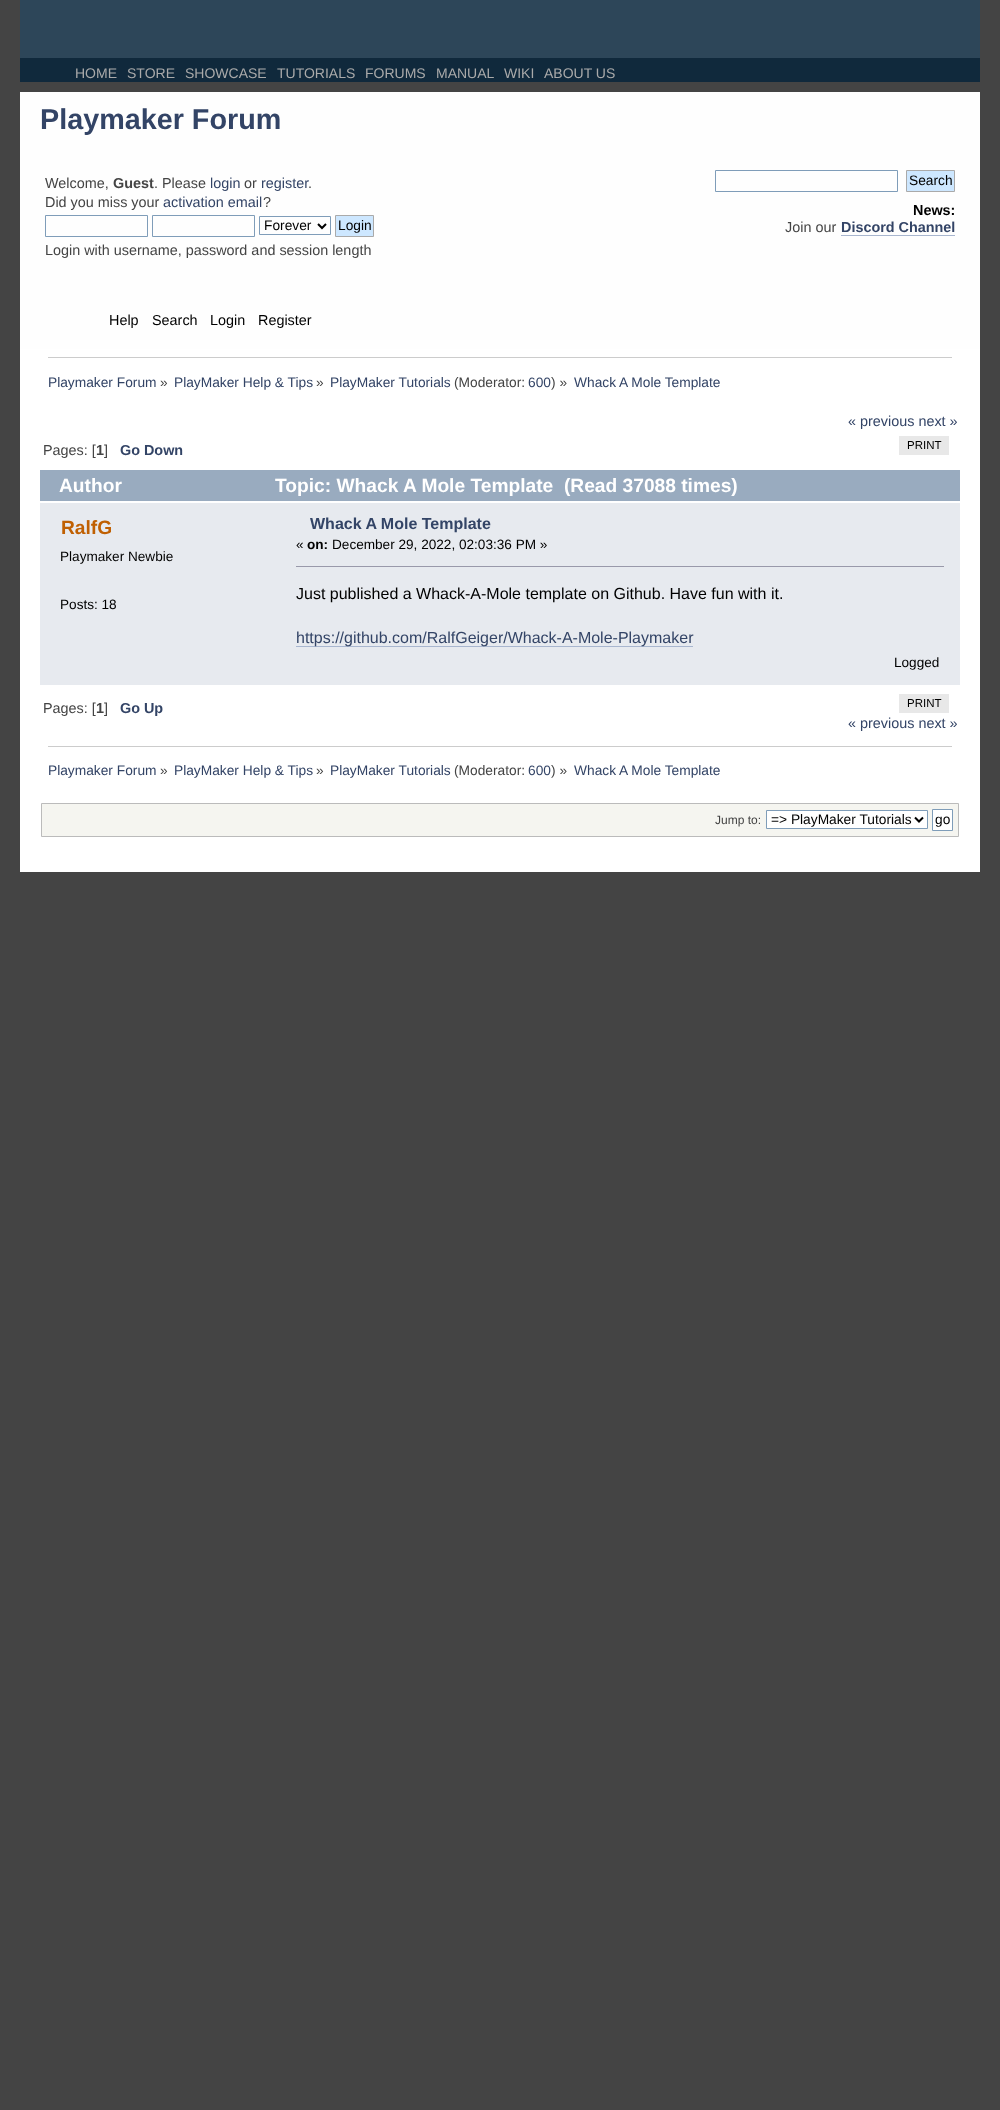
<svg xmlns="http://www.w3.org/2000/svg" width="1000" height="2110" viewBox="0 0 1000 2110">
  <rect width="100%" height="100%" fill="#444"/>
  <path d="M20 0h960v58H20z" fill="#2d4659"/>
  <path d="M20 58h960v24H20z" fill="#10293c"/>
  <path d="M20 92h960v257H20z" fill="#fefefe"/>
  <path d="M45.5 215.5h102v21H45.5z" fill="none" stroke="#7f9db9"/>
  <path d="M152.5 215.5h102v21H152.5z" fill="none" stroke="#7f9db9"/>
  <path d="M259.5 216.5h71v18H259.5z" fill="none" stroke="#7f9db9"/>
  <path d="M318 224L322 228L326 224" fill="none" stroke="#000" stroke-width="2"/>
  <path d="M335.5 215.5h38v21H335.5z" fill="#cde7ff" stroke="#aaa"/>
  <path d="M715.5 170.5h182v21H715.5z" fill="none" stroke="#7f9db9"/>
  <path d="M906.5 170.5h48v21H906.5z" fill="#cde7ff" stroke="#aaa"/>
  <path d="M841 235h114v1H841z" fill="#a8b6cf"/>
  <path d="M20 349h960v523H20z" fill="#fff"/>
  <path d="M48 357h904v1H48z" fill="#ccc"/>
  <path d="M899 436h50v19H899z" fill="#e8e8e8"/>
  <path d="M40 470h920v31H40z" fill="#99abbf"/>
  <path d="M40 503h920v182H40z" fill="#e7eaef"/>
  <path d="M296 566h648v1H296z" fill="#99a"/>
  <path d="M296 646h397v1H296z" fill="#a8b6cf"/>
  <path d="M899 694h50v19H899z" fill="#e8e8e8"/>
  <path d="M48 746h904v1H48z" fill="#ccc"/>
  <path d="M41.5 803.5h917v33H41.5z" fill="#f5f5f0" stroke="#bbb"/>
  <path d="M766.5 810.5h161v18H766.5z" fill="#fff" stroke="#7f9db9"/>
  <path d="M915 817.5L919 821.5L923 817.5" fill="none" stroke="#000" stroke-width="2"/>
  <path d="M932.5 809.5h20v21H932.5z" fill="#fff" stroke="#7f9db9"/>
  <g font-family="Liberation Sans" font-size="14" fill="#aaa">
    <text x="75" y="78">HOME</text>
    <text x="127" y="78">STORE</text>
    <text x="185" y="78">SHOWCASE</text>
    <text x="277" y="78">TUTORIALS</text>
    <text x="365" y="78">FORUMS</text>
    <text x="436" y="78">MANUAL</text>
    <text x="504" y="78">WIKI</text>
    <text x="544" y="78">ABOUT US</text>
  </g>
  <text x="40" y="129" font-family="Liberation Sans" font-size="28.75" font-weight="bold" fill="#346">Playmaker Forum</text>
  <text x="45" y="188" font-family="Liberation Sans" font-size="14.4" fill="#444">Welcome,</text>
  <text x="113" y="188" font-family="Liberation Sans" font-size="14.4" font-weight="bold" fill="#444">Guest</text>
  <text x="154" y="188" font-family="Liberation Sans" font-size="14.4" fill="#444">. Please</text>
  <text x="210" y="188" font-family="Liberation Sans" font-size="14.4" fill="#346">login</text>
  <text x="244" y="188" font-family="Liberation Sans" font-size="14.4" fill="#444">or</text>
  <text x="261" y="188" font-family="Liberation Sans" font-size="14.4" fill="#346">register</text>
  <g font-family="Liberation Sans" font-size="14.4" fill="#444">
    <text x="308" y="188">.</text>
    <text x="45" y="207">Did you miss your</text>
  </g>
  <text x="163" y="207" font-family="Liberation Sans" font-size="14.4" fill="#346">activation email</text>
  <text x="263" y="207" font-family="Liberation Sans" font-size="14.4" fill="#444">?</text>
  <g font-family="Liberation Sans" font-size="13.75" fill="#000">
    <text x="264" y="230">Forever</text>
    <text x="338" y="230">Login</text>
  </g>
  <text x="45" y="255" font-family="Liberation Sans" font-size="14.4" fill="#444">Login with username, password and session length</text>
  <text x="909" y="185" font-family="Liberation Sans" font-size="13.75" fill="#000">Search</text>
  <text x="913" y="215" font-family="Liberation Sans" font-size="14.4" font-weight="bold" fill="#000">News:</text>
  <text x="785" y="232" font-family="Liberation Sans" font-size="14.4" fill="#444">Join our</text>
  <text x="841" y="232" font-family="Liberation Sans" font-size="14.4" font-weight="bold" fill="#346">Discord Channel</text>
  <g font-family="Liberation Sans" font-size="14.4" fill="#000">
    <text x="109" y="325">Help</text>
    <text x="152" y="325">Search</text>
    <text x="210" y="325">Login</text>
    <text x="258" y="325">Register</text>
  </g>
  <text x="48" y="387" font-family="Liberation Sans" font-size="13.75" fill="#346">Playmaker Forum</text>
  <text x="160" y="387" font-family="Liberation Sans" font-size="13.75" fill="#444">»</text>
  <text x="174" y="387" font-family="Liberation Sans" font-size="13.75" fill="#346">PlayMaker Help &amp; Tips</text>
  <text x="316" y="387" font-family="Liberation Sans" font-size="13.75" fill="#444">»</text>
  <text x="330" y="387" font-family="Liberation Sans" font-size="13.75" fill="#346">PlayMaker Tutorials</text>
  <text x="454" y="387" font-family="Liberation Sans" font-size="13.75" fill="#444">(Moderator:</text>
  <text x="528" y="387" font-family="Liberation Sans" font-size="13.75" fill="#346">600</text>
  <text x="551" y="387" font-family="Liberation Sans" font-size="13.75" fill="#444">) »</text>
  <text x="574" y="387" font-family="Liberation Sans" font-size="13.75" fill="#346">Whack A Mole Template</text>
  <text x="848" y="426" font-family="Liberation Sans" font-size="14.4" fill="#346">« previous next »</text>
  <text x="43" y="455" font-family="Liberation Sans" font-size="14.4" fill="#444">Pages: [</text>
  <text x="96" y="455" font-family="Liberation Sans" font-size="14.4" font-weight="bold" fill="#444">1</text>
  <text x="104" y="455" font-family="Liberation Sans" font-size="14.4" fill="#444">]</text>
  <text x="120" y="455" font-family="Liberation Sans" font-size="14.4" font-weight="bold" fill="#346">Go Down</text>
  <text x="907" y="449" font-family="Liberation Sans" font-size="11.5" fill="#000">PRINT</text>
  <g font-family="Liberation Sans" font-size="19.2" font-weight="bold" fill="#fff">
    <text x="59" y="492">Author</text>
    <text x="275" y="492" xml:space="preserve">Topic: Whack A Mole Template  (Read 37088 times)</text>
  </g>
  <text x="61" y="534" font-family="Liberation Sans" font-size="19.2" font-weight="bold" fill="#c06002">RalfG</text>
  <g font-family="Liberation Sans" font-size="13.6" fill="#000">
    <text x="60" y="561">Playmaker Newbie</text>
    <text x="60" y="609">Posts: 18</text>
  </g>
  <text x="310" y="529" font-family="Liberation Sans" font-size="16" font-weight="bold" fill="#346">Whack A Mole Template</text>
  <text x="296" y="549" font-family="Liberation Sans" font-size="13.6" fill="#000">«</text>
  <text x="307" y="549" font-family="Liberation Sans" font-size="13.6" font-weight="bold" fill="#000">on:</text>
  <text x="332" y="549" font-family="Liberation Sans" font-size="13.6" fill="#000">December 29, 2022, 02:03:36 PM »</text>
  <text x="296" y="599" font-family="Liberation Sans" font-size="16" fill="#000">Just published a Whack-A-Mole template on Github. Have fun with it.</text>
  <text x="296" y="643" font-family="Liberation Sans" font-size="16" fill="#346">https://github.com/RalfGeiger/Whack-A-Mole-Playmaker</text>
  <text x="894" y="667" font-family="Liberation Sans" font-size="13.6" fill="#000">Logged</text>
  <text x="43" y="713" font-family="Liberation Sans" font-size="14.4" fill="#444">Pages: [</text>
  <text x="96" y="713" font-family="Liberation Sans" font-size="14.4" font-weight="bold" fill="#444">1</text>
  <text x="104" y="713" font-family="Liberation Sans" font-size="14.4" fill="#444">]</text>
  <text x="120" y="713" font-family="Liberation Sans" font-size="14.4" font-weight="bold" fill="#346">Go Up</text>
  <text x="907" y="707" font-family="Liberation Sans" font-size="11.5" fill="#000">PRINT</text>
  <text x="848" y="728" font-family="Liberation Sans" font-size="14.4" fill="#346">« previous next »</text>
  <text x="48" y="775" font-family="Liberation Sans" font-size="13.75" fill="#346">Playmaker Forum</text>
  <text x="160" y="775" font-family="Liberation Sans" font-size="13.75" fill="#444">»</text>
  <text x="174" y="775" font-family="Liberation Sans" font-size="13.75" fill="#346">PlayMaker Help &amp; Tips</text>
  <text x="316" y="775" font-family="Liberation Sans" font-size="13.75" fill="#444">»</text>
  <text x="330" y="775" font-family="Liberation Sans" font-size="13.75" fill="#346">PlayMaker Tutorials</text>
  <text x="454" y="775" font-family="Liberation Sans" font-size="13.75" fill="#444">(Moderator:</text>
  <text x="528" y="775" font-family="Liberation Sans" font-size="13.75" fill="#346">600</text>
  <text x="551" y="775" font-family="Liberation Sans" font-size="13.75" fill="#444">) »</text>
  <text x="574" y="775" font-family="Liberation Sans" font-size="13.75" fill="#346">Whack A Mole Template</text>
  <text x="715" y="824" font-family="Liberation Sans" font-size="12" fill="#444">Jump to:</text>
  <g font-family="Liberation Sans" font-size="13.75" fill="#000">
    <text x="771" y="824">=&gt; PlayMaker Tutorials</text>
    <text x="935" y="824">go</text>
  </g>
</svg>
